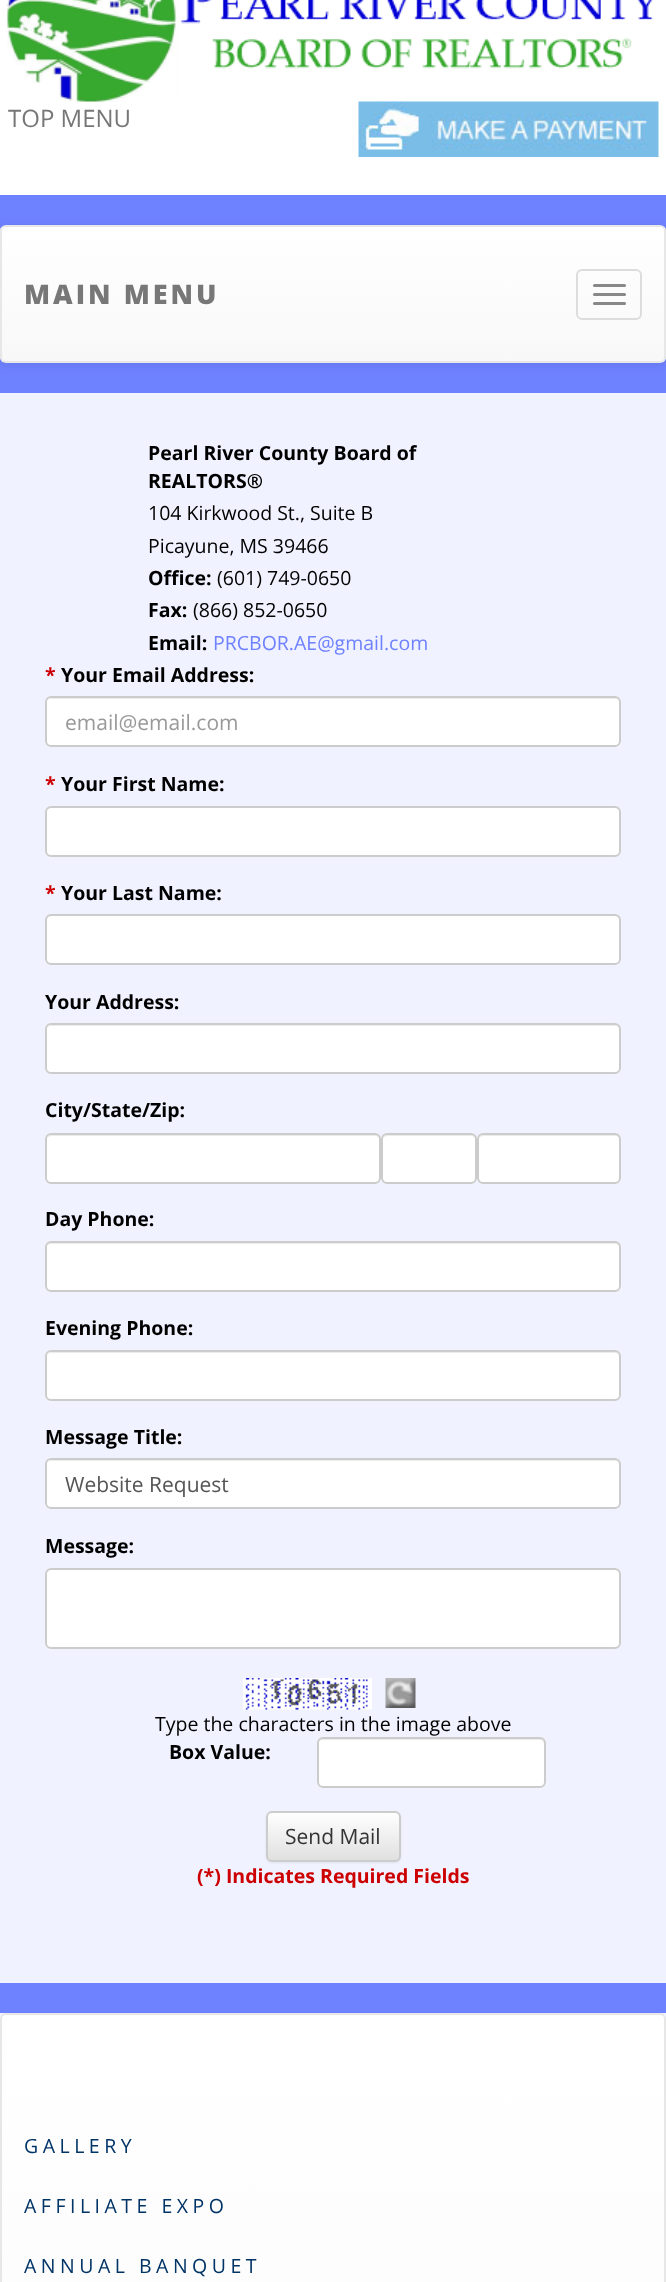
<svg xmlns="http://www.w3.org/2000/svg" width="666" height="2282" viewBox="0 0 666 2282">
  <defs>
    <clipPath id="clip1"><rect y="225" width="666" height="138" rx="6"/></clipPath>
    <linearGradient id="g1" gradientUnits="userSpaceOnUse" x1="333" y1="226" x2="333" y2="362"><stop offset="0" stop-color="#fff"/><stop offset="1" stop-color="#f8f8f8"/></linearGradient>
    <clipPath id="clip2"><rect x="266" y="1811" width="135" height="51" rx="6"/></clipPath>
    <linearGradient id="g2" gradientUnits="userSpaceOnUse" x1="333" y1="1812" x2="333" y2="1860"><stop offset="0" stop-color="#fff"/><stop offset="1" stop-color="#e0e0e0"/></linearGradient>
    <clipPath id="clip3"><rect y="2013" width="666" height="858" rx="6"/></clipPath>
    <linearGradient id="g3" gradientUnits="userSpaceOnUse" x1="333" y1="2015" x2="333" y2="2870"><stop offset="0" stop-color="#fff"/><stop offset="1" stop-color="#f8f8f8"/></linearGradient>
  </defs>
  <rect width="100%" height="100%" fill="#6e81ff"/>
  <path d="M0 0h666v195H0z" fill="#fff"/>
  <image x="7" y="0" width="646" height="102" href="img/1.png"/>
  <image x="358" y="101" width="301" height="56" href="img/2.png"/>
  <rect y="227" width="666" height="138" rx="6" fill="#00000012" filter="blur(4px)"/>
  <g clip-path="url(#clip1)">
    <path d="M0 227h666v135H0z" fill="url(#g1)"/>
  </g>
  <rect x="1" y="226" width="664" height="136" rx="5" fill="none" stroke="#e7e7e7" stroke-width="2"/>
  <rect x="577" y="270" width="64" height="49" rx="5" fill="none" stroke="#ddd" stroke-width="2"/>
  <rect x="593" y="284" width="33" height="3" rx="1.5" fill="#888"/>
  <rect x="593" y="293" width="33" height="3" rx="1.5" fill="#888"/>
  <rect x="593" y="302" width="33" height="3" rx="1.5" fill="#888"/>
  <path d="M0 393h666v1590H0z" fill="#f1f2ff"/>
  <rect x="45" y="696" width="576" height="51" rx="6" fill="#fff"/>
  <path d="M51 699H615C617 699 620 701 620 704V703C620 700 618 698 615 698H52C50 698 49 699 48 700Z" fill="#ececec"/>
  <rect x="46" y="697" width="574" height="49" rx="5" fill="none" stroke="#ccc" stroke-width="2"/>
  <rect x="45" y="806" width="576" height="51" rx="6" fill="#fff"/>
  <path d="M51 808H615C617 808 620 811 620 813V812C620 809 618 807 615 807H52C50 807 48 808 47 810C48 809 50 808 51 808Z" fill="#ececec"/>
  <rect x="46" y="807" width="574" height="49" rx="5" fill="none" stroke="#ccc" stroke-width="2"/>
  <rect x="45" y="914" width="576" height="51" rx="6" fill="#fff"/>
  <path d="M51 916H615C617 916 620 919 620 921V920C620 917 618 915 615 915H52C50 915 48 916 47 918C48 917 50 916 51 916Z" fill="#ececec"/>
  <rect x="46" y="915" width="574" height="49" rx="5" fill="none" stroke="#ccc" stroke-width="2"/>
  <rect x="45" y="1023" width="576" height="51" rx="6" fill="#fff"/>
  <path d="M51 1026H615C617 1026 620 1028 620 1030C620 1027 618 1025 615 1025H52C50 1025 49 1026 48 1027Z" fill="#ececec"/>
  <rect x="46" y="1024" width="574" height="49" rx="5" fill="none" stroke="#ccc" stroke-width="2"/>
  <rect x="45" y="1133" width="336" height="51" rx="6" fill="#fff"/>
  <path d="M51 1136H375C377 1136 380 1138 380 1140V1139C380 1136 378 1134 375 1134H52C50 1134 48 1136 47 1138C48 1137 50 1136 51 1136Z" fill="#ececec"/>
  <rect x="46" y="1134" width="334" height="49" rx="5" fill="none" stroke="#ccc" stroke-width="2"/>
  <rect x="381" y="1133" width="96" height="51" rx="6" fill="#fff"/>
  <path d="M387 1136H471C473 1136 476 1138 476 1140V1139C476 1136 474 1134 471 1134H388C386 1134 384 1136 383 1138C384 1137 386 1136 387 1136Z" fill="#ececec"/>
  <rect x="382" y="1134" width="94" height="49" rx="5" fill="none" stroke="#ccc" stroke-width="2"/>
  <rect x="477" y="1133" width="144" height="51" rx="6" fill="#fff"/>
  <path d="M483 1136H615C617 1136 620 1138 620 1140V1139C620 1136 618 1134 615 1134H484C482 1134 480 1136 479 1138C480 1137 482 1136 483 1136Z" fill="#ececec"/>
  <rect x="478" y="1134" width="142" height="49" rx="5" fill="none" stroke="#ccc" stroke-width="2"/>
  <rect x="45" y="1241" width="576" height="51" rx="6" fill="#fff"/>
  <path d="M51 1244H615C617 1244 620 1246 620 1248V1247C620 1244 618 1242 615 1242H52C50 1242 48 1244 47 1246C48 1245 50 1244 51 1244Z" fill="#ececec"/>
  <rect x="46" y="1242" width="574" height="49" rx="5" fill="none" stroke="#ccc" stroke-width="2"/>
  <rect x="45" y="1350" width="576" height="51" rx="6" fill="#fff"/>
  <path d="M51 1353H615C617 1353 620 1355 620 1358V1357C620 1354 618 1352 615 1352H52C50 1352 49 1353 48 1354Z" fill="#ececec"/>
  <rect x="46" y="1351" width="574" height="49" rx="5" fill="none" stroke="#ccc" stroke-width="2"/>
  <rect x="45" y="1458" width="576" height="51" rx="6" fill="#fff"/>
  <path d="M51 1461H615C617 1461 620 1463 620 1466V1465C620 1462 618 1460 615 1460H52C50 1460 49 1461 48 1462Z" fill="#ececec"/>
  <rect x="46" y="1459" width="574" height="49" rx="5" fill="none" stroke="#ccc" stroke-width="2"/>
  <rect x="45" y="1568" width="576" height="81" rx="6" fill="#fff"/>
  <path d="M51 1570H615C617 1570 620 1573 620 1575V1574C620 1571 618 1569 615 1569H52C50 1569 48 1570 47 1572C48 1571 50 1570 51 1570Z" fill="#ececec"/>
  <rect x="46" y="1569" width="574" height="79" rx="5" fill="none" stroke="#ccc" stroke-width="2"/>
  <image x="243" y="1678" width="129" height="32" href="img/3.png"/>
  <image x="385" y="1678" width="31" height="30" href="img/4.png"/>
  <rect x="317" y="1737" width="229" height="51" rx="6" fill="#fff"/>
  <path d="M322 1740H540C542 1740 544 1742 544 1744V1785C545 1784 545 1783 545 1782V1744C545 1741 543 1739 540 1739H323C320 1739 318 1741 318 1744C318 1742 320 1740 322 1740Z" fill="#ececec"/>
  <rect x="318" y="1738" width="227" height="49" rx="5" fill="none" stroke="#ccc" stroke-width="2"/>
  <rect x="266" y="1812" width="135" height="51" rx="6" fill="#00000012" filter="blur(1px)"/>
  <g clip-path="url(#clip2)">
    <path d="M266 1812h135v48H266z" fill="url(#g2)"/>
  </g>
  <path d="M272 1814H394C397 1814 399 1816 399 1818C399 1807 377 1812 374 1812H292C289 1812 267 1807 267 1818C267 1816 269 1814 272 1814Z" fill="#fff"/>
  <rect x="267" y="1812" width="133" height="49" rx="5" fill="none" stroke="#ccc" stroke-width="2"/>
  <path d="M0 2013h666v6H0z" fill="#f1f2ff"/>
  <g clip-path="url(#clip3)">
    <path d="M0 2015h666v267H0z" fill="url(#g3)"/>
  </g>
  <rect x="1" y="2014" width="664" height="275" rx="5" fill="none" stroke="#e7e7e7" stroke-width="2"/>
  <text x="8" y="127" font-family="Open Sans" font-size="24" fill="#777">TOP MENU</text>
  <text x="24" y="304" font-family="Open Sans" font-size="27" font-weight="800" letter-spacing="3" fill="#777">MAIN MENU</text>
  <g font-family="Open Sans" font-size="19.5" font-weight="bold" fill="#000">
    <text x="148" y="460">Pearl River County Board of</text>
    <text x="148" y="488">REALTORS®</text>
  </g>
  <g font-family="Open Sans" font-size="19.5" fill="#000">
    <text x="148" y="520">104 Kirkwood St., Suite B</text>
    <text x="148" y="553">Picayune, MS 39466</text>
  </g>
  <text x="148" y="585" font-family="Open Sans" font-size="19.5" font-weight="bold" fill="#000">Office:</text>
  <text x="217" y="585" font-family="Open Sans" font-size="19.5" fill="#000">(601) 749-0650</text>
  <text x="148" y="617" font-family="Open Sans" font-size="19.5" font-weight="bold" fill="#000">Fax:</text>
  <text x="193" y="617" font-family="Open Sans" font-size="19.5" fill="#000">(866) 852-0650</text>
  <text x="148" y="650" font-family="Open Sans" font-size="19.5" font-weight="bold" fill="#000">Email:</text>
  <text x="213" y="650" font-family="Open Sans" font-size="19.5" fill="#6e81ff">PRCBOR.AE@gmail.com</text>
  <text x="45" y="682" font-family="Open Sans" font-size="19.5" font-weight="bold" fill="#c00">*</text>
  <text x="61" y="682" font-family="Open Sans" font-size="19.5" font-weight="bold" fill="#000">Your Email Address:</text>
  <text x="65" y="730" font-family="Open Sans" font-size="21" fill="#999">email@email.com</text>
  <text x="45" y="791" font-family="Open Sans" font-size="19.5" font-weight="bold" fill="#c00">*</text>
  <text x="61" y="791" font-family="Open Sans" font-size="19.5" font-weight="bold" fill="#000">Your First Name:</text>
  <text x="45" y="900" font-family="Open Sans" font-size="19.5" font-weight="bold" fill="#c00">*</text>
  <g font-family="Open Sans" font-size="19.5" font-weight="bold" fill="#000">
    <text x="61" y="900">Your Last Name:</text>
    <text x="45" y="1009">Your Address:</text>
    <text x="45" y="1117">City/State/Zip:</text>
    <text x="45" y="1226">Day Phone:</text>
    <text x="45" y="1335">Evening Phone:</text>
    <text x="45" y="1444">Message Title:</text>
  </g>
  <text x="65" y="1492" font-family="Open Sans" font-size="21" fill="#555">Website Request</text>
  <text x="45" y="1553" font-family="Open Sans" font-size="19.5" font-weight="bold" fill="#000">Message:</text>
  <text x="155" y="1731" font-family="Open Sans" font-size="19.5" fill="#000">Type the characters in the image above</text>
  <text x="169" y="1759" font-family="Open Sans" font-size="19.5" font-weight="bold" fill="#000">Box Value:</text>
  <text x="285" y="1844" font-family="Open Sans" font-size="21" fill="#333">Send Mail</text>
  <text x="197" y="1883" font-family="Open Sans" font-size="19.5" font-weight="bold" fill="#c00">(*) Indicates Required Fields</text>
  <g font-family="Open Sans" font-size="19.5" letter-spacing="4.5" fill="#036">
    <text x="24" y="2153">GALLERY</text>
    <text x="24" y="2213">AFFILIATE EXPO</text>
    <text x="24" y="2273">ANNUAL BANQUET</text>
  </g>
</svg>
